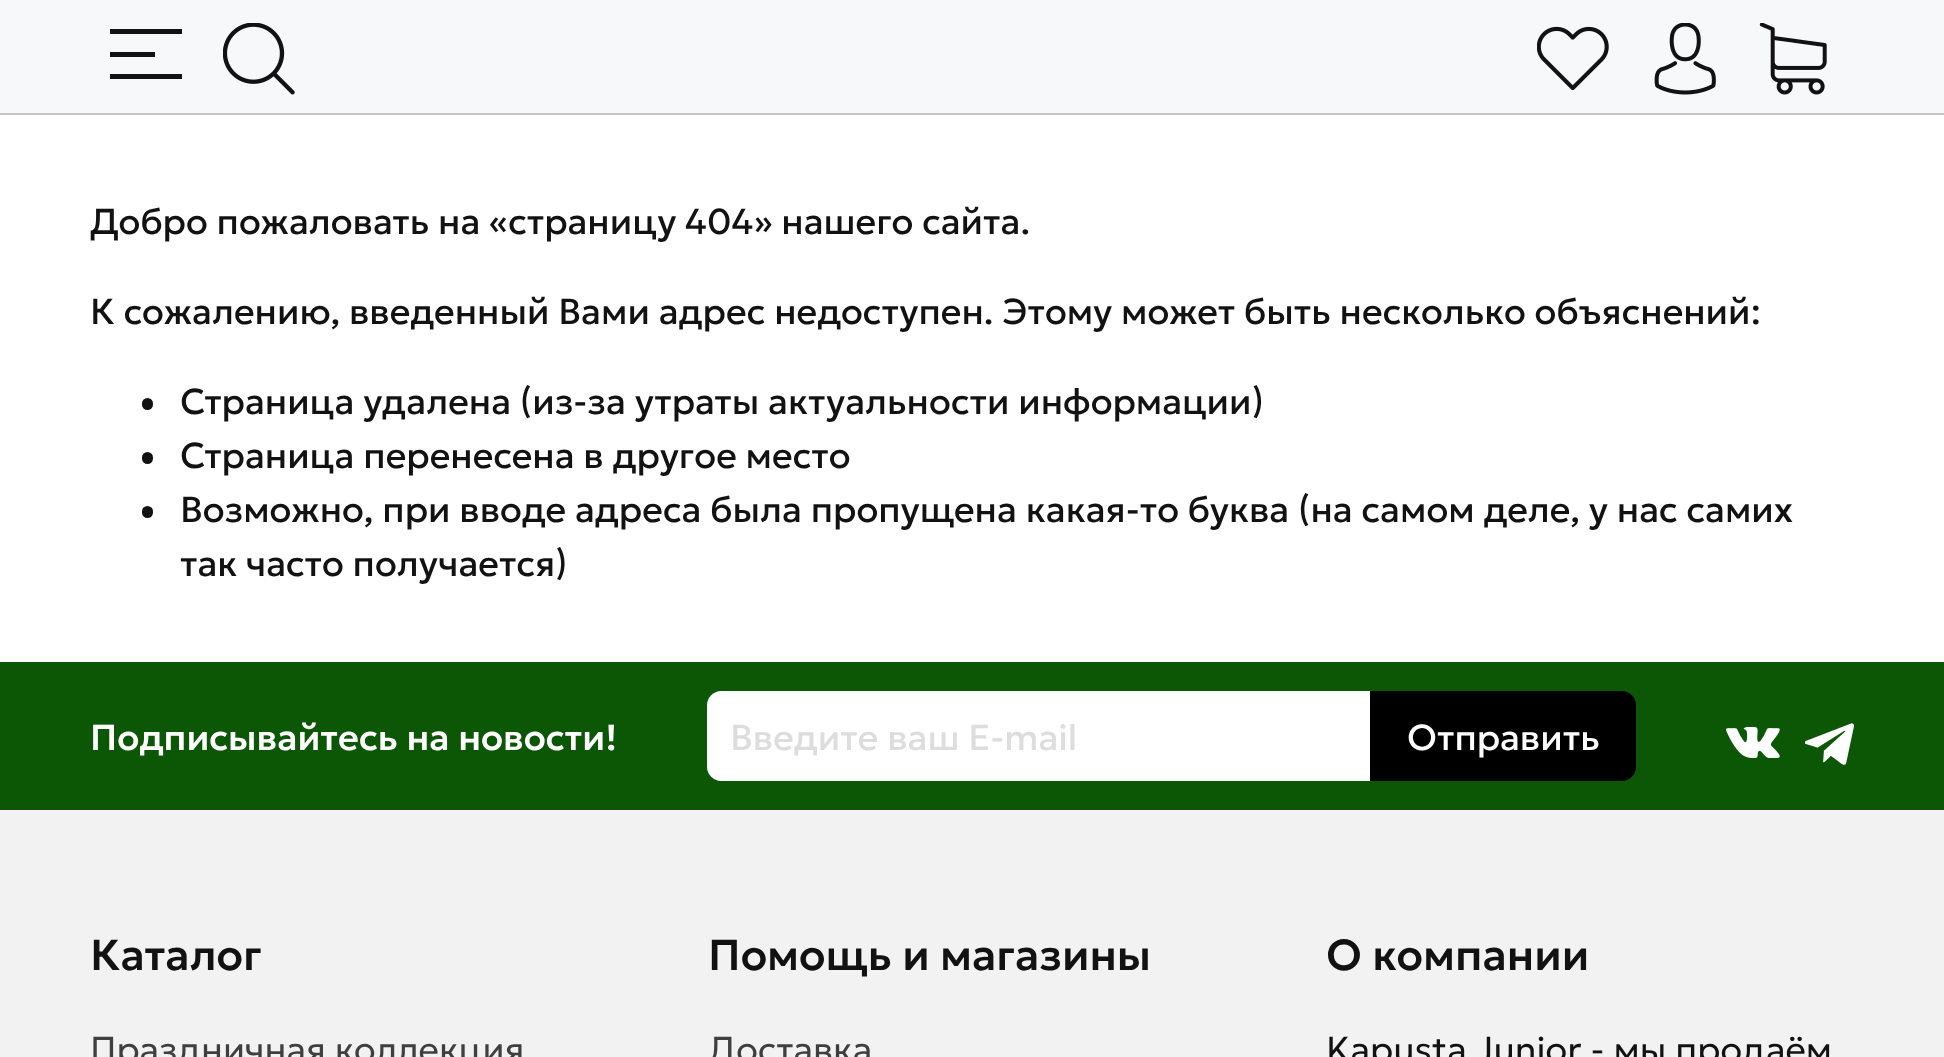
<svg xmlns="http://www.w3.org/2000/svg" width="1944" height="1057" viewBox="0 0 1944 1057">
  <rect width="100%" height="100%" fill="#fff"/>
  <path d="M0 113h1944v2H0z" fill="#c5c5c5"/>
  <path d="M0 0h1944v113H0z" fill="#f7f8fa"/>
  <path d="M110 29h72v5H110z" fill="#121212"/>
  <path d="M110 52h45v5H110z" fill="#121212"/>
  <path d="M110 74h72v5H110z" fill="#121212"/>
  <image x="223" y="23" width="72" height="72" href="img/1.png"/>
  <image x="1537" y="26" width="72" height="65" href="img/2.png"/>
  <image x="1654" y="23" width="62" height="72" href="img/3.png"/>
  <image x="1759" y="23" width="68" height="72" href="img/4.png"/>
  <rect x="142" y="398" width="11" height="12" rx="5.5" fill="#121212"/>
  <rect x="142" y="452" width="11" height="12" rx="5.5" fill="#121212"/>
  <rect x="142" y="506" width="11" height="12" rx="5.5" fill="#121212"/>
  <path d="M0 662h1944v148H0z" fill="#0b5705"/>
  <path d="M721 691H1370V781H721C713.5 781 707 774.5 707 767V705C707 697.5 713.5 691 721 691Z" fill="#fff"/>
  <path d="M1370 691H1622C1629.5 691 1636 697.5 1636 705V767C1636 774.5 1629.5 781 1622 781H1370Z" fill="#000"/>
  <image x="1726" y="727" width="54" height="31" href="img/5.png"/>
  <image x="1805" y="723" width="49" height="42" href="img/6.png"/>
  <path d="M0 810h1944v247H0z" fill="#f2f2f2"/>
  <g font-family="Geologica" font-size="36" fill="#121212">
    <text x="90" y="234">Добро пожаловать на «страницу 404» нашего сайта.</text>
    <text x="90" y="324">К сожалению, введенный Вами адрес недоступен. Этому может быть несколько объяснений:</text>
    <text x="180" y="414">Страница удалена (из-за утраты актуальности информации)</text>
    <text x="180" y="468">Страница перенесена в другое место</text>
    <text x="180" y="522">Возможно, при вводе адреса была пропущена какая-то буква (на самом деле, у нас самих</text>
    <text x="180" y="576">так часто получается)</text>
  </g>
  <text x="90" y="750" font-family="Geologica" font-size="36" font-weight="500" fill="#fff">Подписывайтесь на новости!</text>
  <text x="730" y="750" font-family="Geologica" font-size="36" fill="#ddd">Введите ваш E-mail</text>
  <text x="1407" y="750" font-family="Geologica" font-size="36" fill="#fff">Отправить</text>
  <text x="90" y="970" font-family="Geologica" font-size="43.25" font-weight="500" fill="#121212">Каталог</text>
  <text x="90" y="1062" font-family="Geologica" font-size="36" font-weight="300" fill="#3f3f3f">Праздничная коллекция</text>
  <text x="708" y="970" font-family="Geologica" font-size="43.25" font-weight="500" fill="#121212">Помощь и магазины</text>
  <text x="708" y="1062" font-family="Geologica" font-size="36" font-weight="300" fill="#3f3f3f">Доставка</text>
  <text x="1326" y="970" font-family="Geologica" font-size="43.25" font-weight="500" fill="#121212">О компании</text>
  <text x="1326" y="1062" font-family="Geologica" font-size="36" font-weight="300" fill="#121212">Kapusta Junior - мы продаём</text>
</svg>
